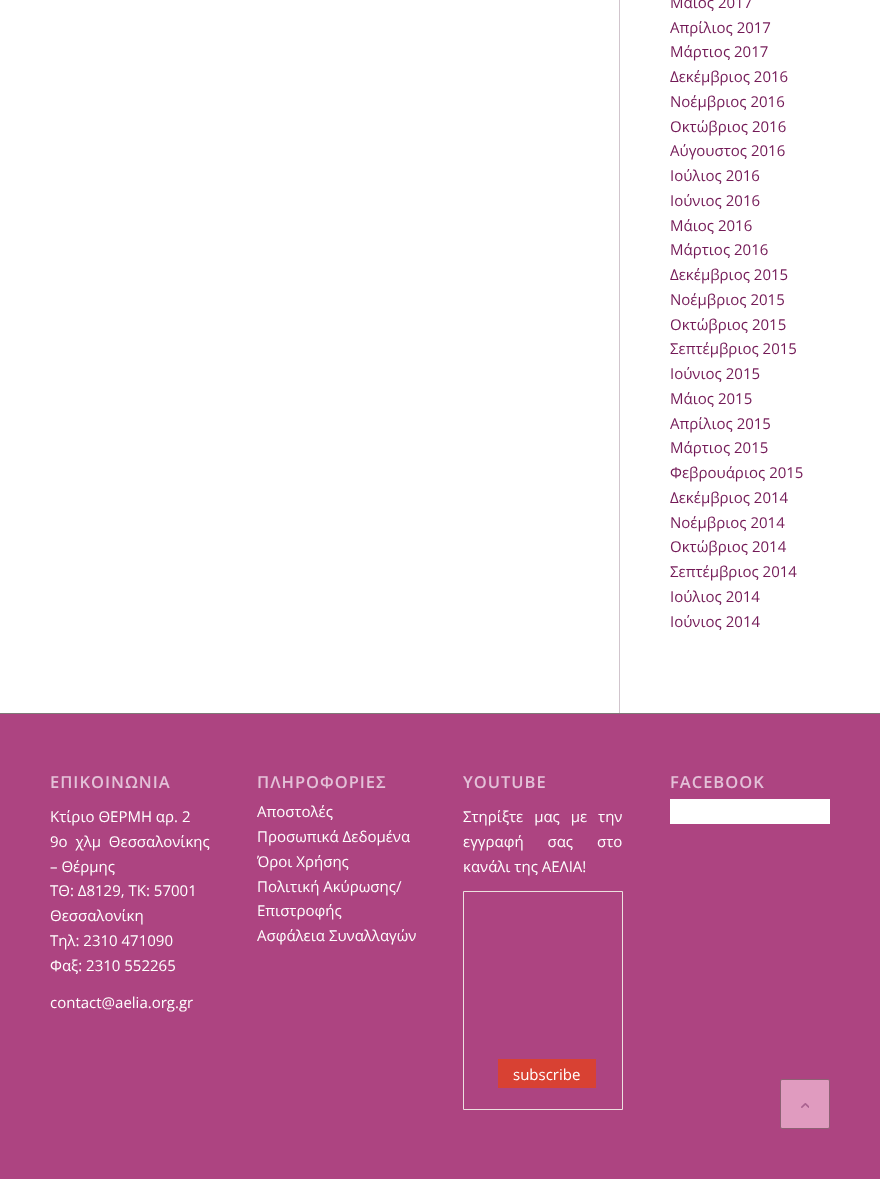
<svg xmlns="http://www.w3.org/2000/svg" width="880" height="1179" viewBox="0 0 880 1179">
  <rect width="100%" height="100%" fill="#fff"/>
  <path d="M619 0h1v713H619z" fill="#d1c5cd"/>
  <path d="M0 714h880v465H0z" fill="#ad4481"/>
  <path d="M0 713h880v1H0z" fill="#807877"/>
  <path d="M463.5 891.5h159v218H463.5z" fill="none" stroke="#ede0e0"/>
  <path d="M498 1059h98v29H498z" fill="#d84133"/>
  <path d="M670 799h160v25H670z" fill="#fff"/>
  <rect x="780.5" y="1079.5" width="49" height="49" rx="1.5" fill="#e09bbf" stroke="#8e6174"/>
  <image x="801" y="1103" width="8" height="5" href="img/1.png"/>
  <g font-family="Open Sans" font-size="15" fill="#731956">
    <text x="670" y="8">Μάιος 2017</text>
    <text x="670" y="33">Απρίλιος 2017</text>
    <text x="670" y="57">Μάρτιος 2017</text>
    <text x="670" y="82">Δεκέμβριος 2016</text>
    <text x="670" y="107">Νοέμβριος 2016</text>
    <text x="670" y="132">Οκτώβριος 2016</text>
    <text x="670" y="156">Αύγουστος 2016</text>
    <text x="670" y="181">Ιούλιος 2016</text>
    <text x="670" y="206">Ιούνιος 2016</text>
    <text x="670" y="231">Μάιος 2016</text>
    <text x="670" y="255">Μάρτιος 2016</text>
    <text x="670" y="280">Δεκέμβριος 2015</text>
    <text x="670" y="305">Νοέμβριος 2015</text>
    <text x="670" y="330">Οκτώβριος 2015</text>
    <text x="670" y="354">Σεπτέμβριος 2015</text>
    <text x="670" y="379">Ιούνιος 2015</text>
    <text x="670" y="404">Μάιος 2015</text>
    <text x="670" y="429">Απρίλιος 2015</text>
    <text x="670" y="453">Μάρτιος 2015</text>
    <text x="670" y="478">Φεβρουάριος 2015</text>
    <text x="670" y="503">Δεκέμβριος 2014</text>
    <text x="670" y="528">Νοέμβριος 2014</text>
    <text x="670" y="552">Οκτώβριος 2014</text>
    <text x="670" y="577">Σεπτέμβριος 2014</text>
    <text x="670" y="602">Ιούλιος 2014</text>
    <text x="670" y="627">Ιούνιος 2014</text>
  </g>
  <text x="50" y="788" font-family="Open Sans" font-size="16.5" font-weight="600" letter-spacing="1" fill="#e3c1d8">ΕΠΙΚΟΙΝΩΝΙΑ</text>
  <g font-family="Open Sans" font-size="15" fill="#fff">
    <text x="50" y="822">Κτίριο ΘΕΡΜΗ αρ. 2</text>
    <text x="50" y="847" word-spacing="4">9ο χλμ Θεσσαλονίκης</text>
    <text x="50" y="872">– Θέρμης</text>
    <text x="50" y="896">ΤΘ: Δ8129, ΤΚ: 57001</text>
    <text x="50" y="921">Θεσσαλονίκη</text>
    <text x="50" y="946">Τηλ: 2310 471090</text>
    <text x="50" y="971">Φαξ: 2310 552265</text>
    <text x="50" y="1008">contact@aelia.org.gr</text>
  </g>
  <text x="257" y="788" font-family="Open Sans" font-size="16.5" font-weight="600" letter-spacing="1" fill="#e3c1d8">ΠΛΗΡΟΦΟΡΙΕΣ</text>
  <g font-family="Open Sans" font-size="15" fill="#fff">
    <text x="257" y="817">Αποστολές</text>
    <text x="257" y="842">Προσωπικά Δεδομένα</text>
    <text x="257" y="867">Όροι Χρήσης</text>
    <text x="257" y="892">Πολιτική Ακύρωσης/</text>
    <text x="257" y="916">Επιστροφής</text>
    <text x="257" y="941">Ασφάλεια Συναλλαγών</text>
  </g>
  <text x="463" y="788" font-family="Open Sans" font-size="16.5" font-weight="600" letter-spacing="1" fill="#e3c1d8">YOUTUBE</text>
  <g font-family="Open Sans" font-size="15" fill="#fff">
    <text x="463" y="822" word-spacing="7">Στηρίξτε μας με την</text>
    <text x="463" y="847" word-spacing="20">εγγραφή σας στο</text>
    <text x="463" y="872">κανάλι της ΑΕΛΙΑ!</text>
    <text x="513" y="1080">subscribe</text>
  </g>
  <text x="670" y="788" font-family="Open Sans" font-size="16.5" font-weight="600" letter-spacing="1" fill="#e3c1d8">FACEBOOK</text>
</svg>
